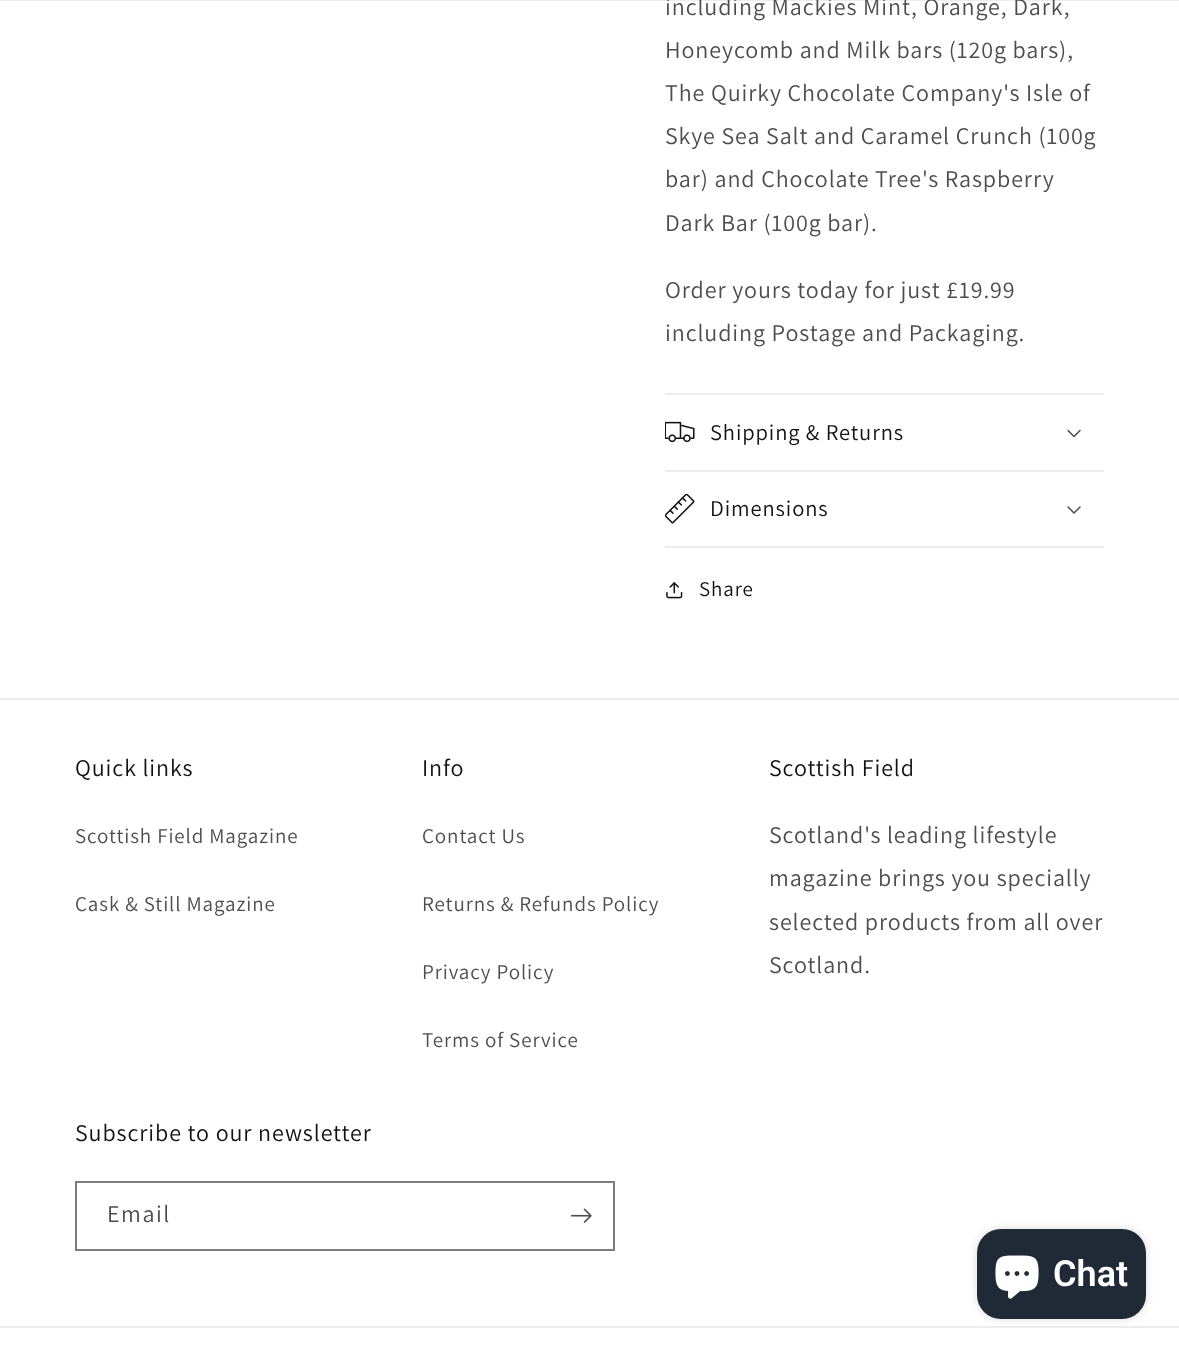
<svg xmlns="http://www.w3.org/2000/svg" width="1179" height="1350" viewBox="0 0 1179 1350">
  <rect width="100%" height="100%" fill="#fff"/>
  <path d="M0 0h1179v1H0z" fill="#12121214"/>
  <path d="M665 393h439v2H665z" fill="#ececec"/>
  <path d="M665 470h439v2H665z" fill="#ececec"/>
  <image x="665" y="421" width="30" height="22" href="img/1.png"/>
  <image x="1067" y="429" width="14" height="9" href="img/2.png"/>
  <path d="M665 546h439v2H665z" fill="#ececec"/>
  <image x="665" y="494" width="30" height="30" href="img/3.png"/>
  <image x="1067" y="506" width="14" height="8" href="img/4.png"/>
  <image x="666" y="582" width="17" height="17" href="img/5.png"/>
  <path d="M0 698h1179v2H0z" fill="#ececec"/>
  <path d="M76 1182h538v68H76z" fill="none" stroke="#7d7d7d" stroke-width="2"/>
  <image x="570" y="1208" width="22" height="15" href="img/6.png"/>
  <path d="M0 1326h1179v2H0z" fill="#ececec"/>
  <rect x="977" y="1229" width="169" height="90" rx="24" fill="#00000026" filter="blur(4px)"/>
  <rect x="977" y="1229" width="169" height="90" rx="24" fill="#202a36"/>
  <image x="995" y="1255" width="44" height="44" href="img/7.png"/>
  <g font-family="Assistant" font-size="24" letter-spacing="0.9" fill="#4d4d4d">
    <text x="665" y="15">including Mackies Mint, Orange, Dark,</text>
    <text x="665" y="58">Honeycomb and Milk bars (120g bars),</text>
    <text x="665" y="101">The Quirky Chocolate Company's Isle of</text>
    <text x="665" y="144">Skye Sea Salt and Caramel Crunch (100g</text>
    <text x="665" y="187">bar) and Chocolate Tree's Raspberry</text>
    <text x="665" y="231">Dark Bar (100g bar).</text>
    <text x="665" y="298">Order yours today for just £19.99</text>
    <text x="665" y="341">including Postage and Packaging.</text>
  </g>
  <g font-family="Assistant" font-size="22.5" letter-spacing="0.9" fill="#121212">
    <text x="710" y="440">Shipping &amp; Returns</text>
    <text x="710" y="516">Dimensions</text>
  </g>
  <text x="699" y="596" font-family="Assistant" font-size="21" letter-spacing="0.9" fill="#121212">Share</text>
  <text x="75" y="776" font-family="Assistant" font-size="24" letter-spacing="0.9" fill="#121212">Quick links</text>
  <g font-family="Assistant" font-size="21" letter-spacing="0.9" fill="#4d4d4d">
    <text x="75" y="843">Scottish Field Magazine</text>
    <text x="75" y="911">Cask &amp; Still Magazine</text>
  </g>
  <text x="422" y="776" font-family="Assistant" font-size="24" letter-spacing="0.9" fill="#121212">Info</text>
  <g font-family="Assistant" font-size="21" letter-spacing="0.9" fill="#4d4d4d">
    <text x="422" y="843">Contact Us</text>
    <text x="422" y="911">Returns &amp; Refunds Policy</text>
    <text x="422" y="979">Privacy Policy</text>
    <text x="422" y="1047">Terms of Service</text>
  </g>
  <text x="769" y="776" font-family="Assistant" font-size="24" letter-spacing="0.9" fill="#121212">Scottish Field</text>
  <g font-family="Assistant" font-size="24" letter-spacing="0.9" fill="#4d4d4d">
    <text x="769" y="843">Scotland's leading lifestyle</text>
    <text x="769" y="886">magazine brings you specially</text>
    <text x="769" y="930">selected products from all over</text>
    <text x="769" y="973">Scotland.</text>
  </g>
  <text x="75" y="1141" font-family="Assistant" font-size="24" letter-spacing="0.9" fill="#121212">Subscribe to our newsletter</text>
  <text x="107" y="1222" font-family="Assistant" font-size="24" letter-spacing="1.5" fill="#4d4d4d">Email</text>
  <text x="1053" y="1286" font-family="Roboto" font-size="36" font-weight="600" fill="#fff">Chat</text>
</svg>
